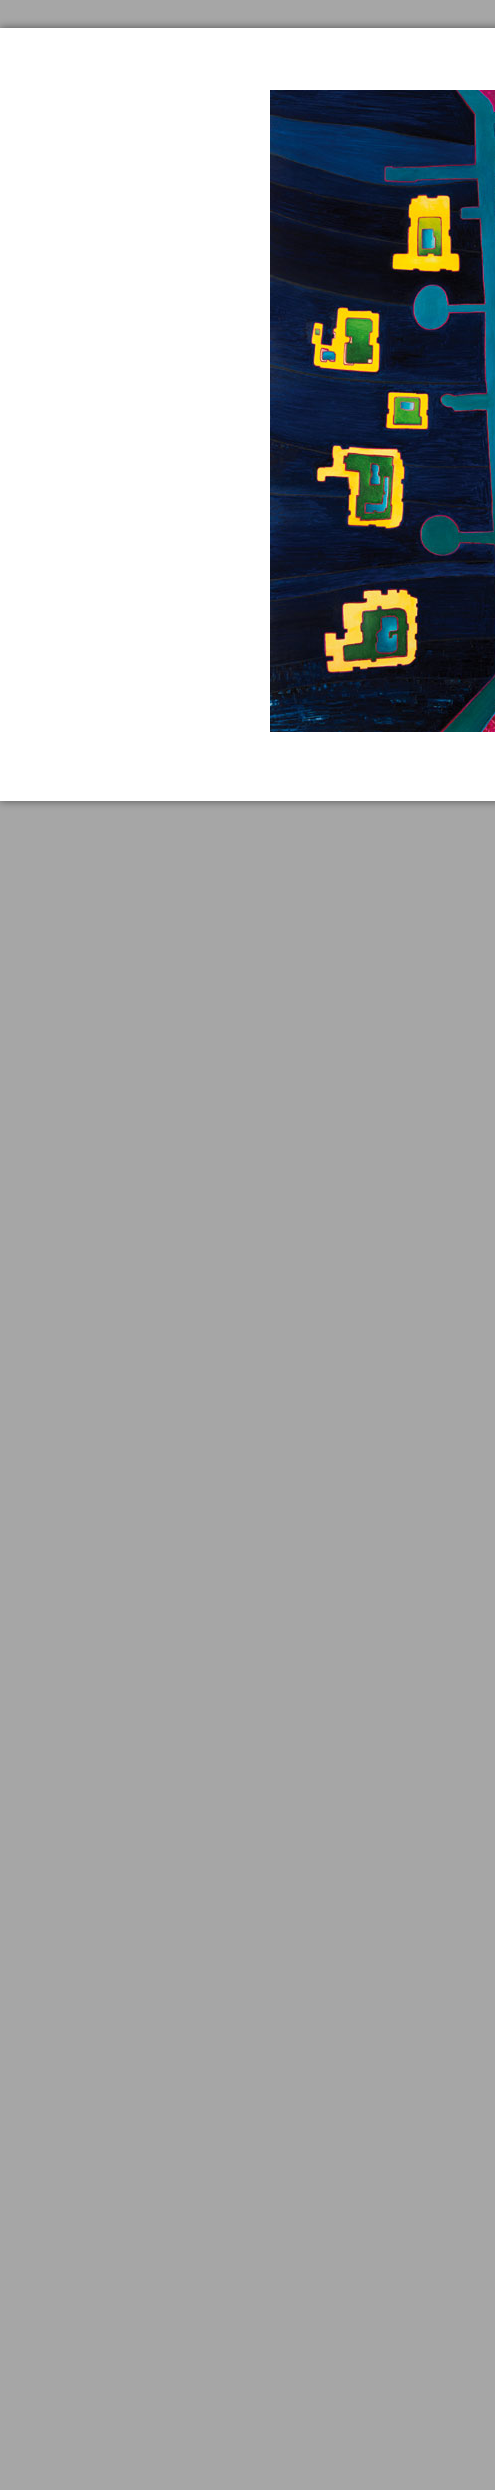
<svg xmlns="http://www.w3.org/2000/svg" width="495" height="2490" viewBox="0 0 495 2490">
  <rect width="100%" height="100%" fill="#a6a6a6"/>
  <path d="M0 28h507v773H0z" fill="#00000080" filter="blur(4px)"/>
  <path d="M0 28h495v773H0z" fill="#fff"/>
  <image x="270" y="90" width="225" height="642" href="img/1.png"/>
</svg>
